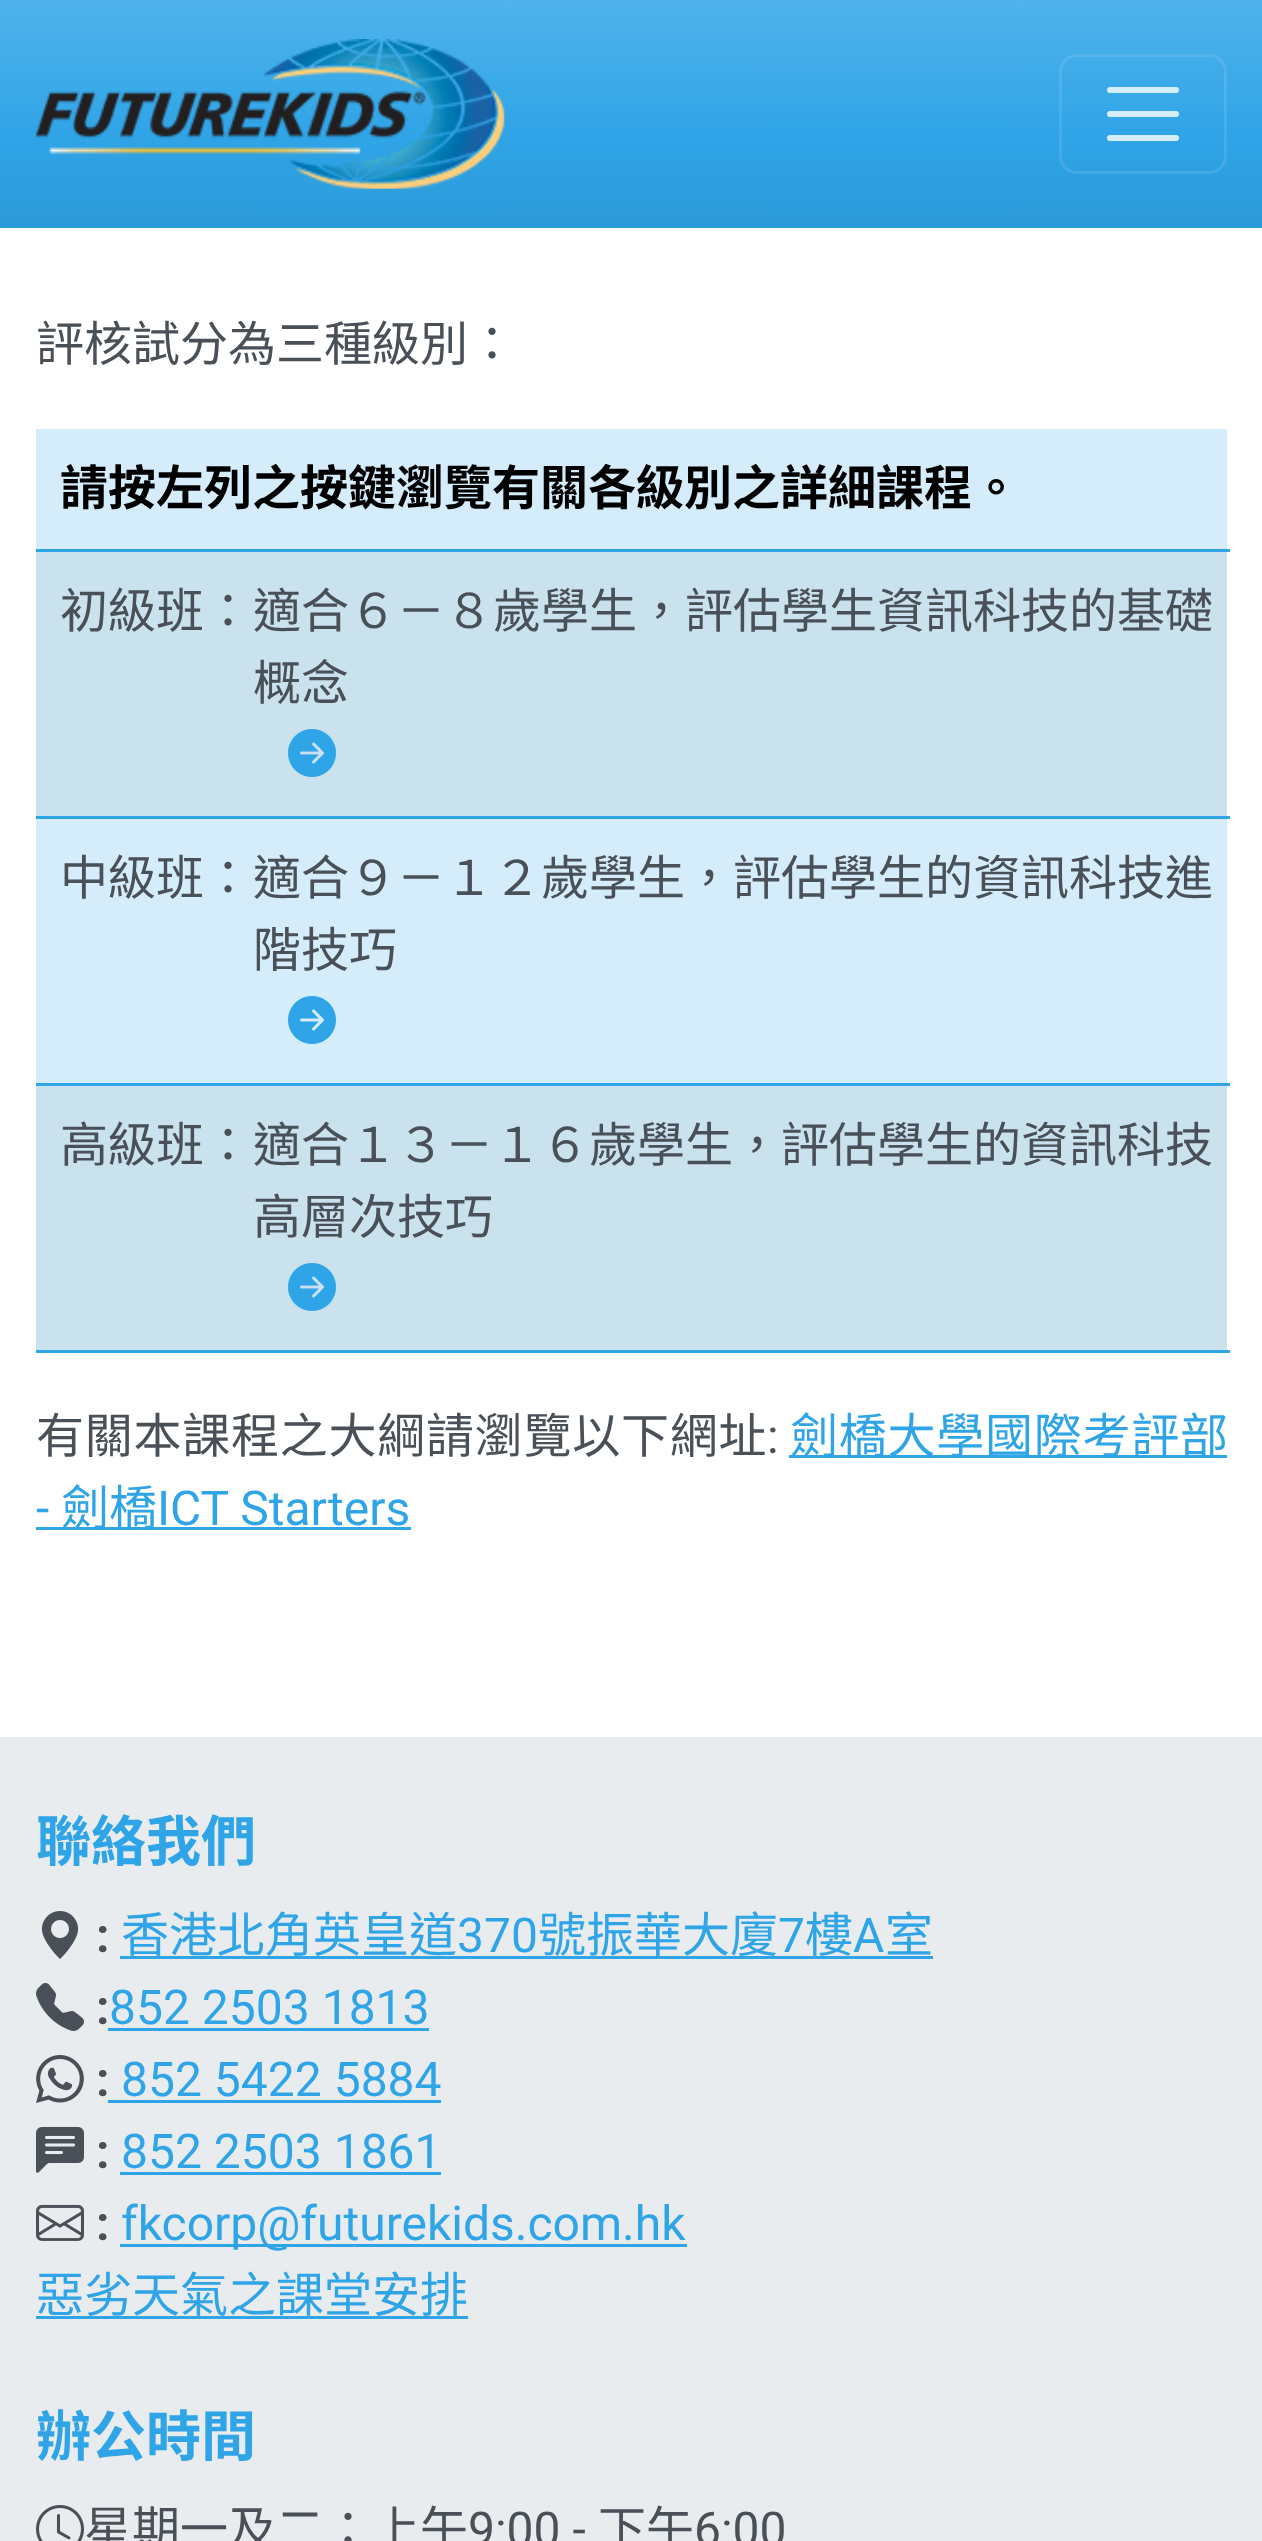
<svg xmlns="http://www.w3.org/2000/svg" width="1262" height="2541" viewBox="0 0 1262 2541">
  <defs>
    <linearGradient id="g1" gradientUnits="userSpaceOnUse" x1="632" y1="0" x2="632" y2="228"><stop offset="0" stop-color="#50b3eb"/><stop offset="0.6" stop-color="#2fa4e7"/><stop offset="1" stop-color="#2c9ad9"/></linearGradient>
  </defs>
  <rect width="100%" height="100%" fill="#fff"/>
  <path d="M0 0h1262v228H0z" fill="url(#g1)"/>
  <image x="36" y="39" width="469" height="150" href="img/1.png"/>
  <rect x="1060.5" y="55.5" width="165" height="117" rx="16.5" fill="none" stroke="#ffffff1a" stroke-width="3"/>
  <path d="M1110 90H1176M1110 114H1176M1110 138H1176" fill="none" stroke="#ffffffcc" stroke-width="6" stroke-linecap="round"/>
  <path d="M36 429h1191v120H36z" fill="#d5edfa"/>
  <path d="M36 549h1194v3H36z" fill="#2fa4e7"/>
  <path d="M36 552h1191v264H36z" fill="#cae1ee"/>
  <path d="M36 816h1194v3H36z" fill="#2fa4e7"/>
  <image x="288" y="729" width="48" height="48" href="img/2.png"/>
  <path d="M36 819h1191v264H36z" fill="#d5edfa"/>
  <path d="M36 1083h1194v3H36z" fill="#2fa4e7"/>
  <image x="288" y="996" width="48" height="48" href="img/3.png"/>
  <path d="M36 1086h1191v264H36z" fill="#cae1ee"/>
  <path d="M36 1350h1194v3H36z" fill="#2fa4e7"/>
  <image x="288" y="1263" width="48" height="48" href="img/2.png"/>
  <path d="M789 1455h438v3H789z" fill="#2fa4e7"/>
  <path d="M36 1527h375v3H36z" fill="#2fa4e7"/>
  <path d="M0 1737h1262v804H0z" fill="#e9ecef"/>
  <image x="41" y="1911" width="38" height="48" href="img/4.png"/>
  <path d="M120 1956h813v3H120z" fill="#2fa4e7"/>
  <image x="36" y="1983" width="48" height="48" href="img/5.png"/>
  <path d="M108 2028h321v3H108z" fill="#2fa4e7"/>
  <image x="36" y="2055" width="48" height="48" href="img/6.png"/>
  <path d="M108 2100h333v3H108z" fill="#2fa4e7"/>
  <image x="36" y="2127" width="48" height="46" href="img/7.png"/>
  <path d="M120 2172h321v3H120z" fill="#2fa4e7"/>
  <image x="36" y="2204" width="48" height="37" href="img/8.png"/>
  <path d="M120 2244h567v3H120z" fill="#2fa4e7"/>
  <path d="M36 2316h432v3H36z" fill="#2fa4e7"/>
  <image x="36" y="2505" width="48" height="36" href="img/9.png"/>
  <text x="36" y="361" font-family="Noto Sans HK" font-size="48" fill="#495057">評核試分為三種級別：</text>
  <text x="60" y="505" font-family="Noto Sans HK" font-size="48" font-weight="bold" fill="#000">請按左列之按鍵瀏覽有關各級別之詳細課程。</text>
  <g font-family="Noto Sans HK" font-size="48" fill="#495057">
    <text x="60" y="628">初級班：</text>
    <text x="253" y="628">適合６－８歲學生，評估學生資訊科技的基礎</text>
    <text x="253" y="700">概念</text>
    <text x="60" y="895">中級班：</text>
    <text x="253" y="895">適合９－１２歲學生，評估學生的資訊科技進</text>
    <text x="253" y="967">階技巧</text>
    <text x="60" y="1162">高級班：</text>
    <text x="253" y="1162">適合１３－１６歲學生，評估學生的資訊科技</text>
    <text x="253" y="1234">高層次技巧</text>
  </g>
  <text x="36" y="1453" font-family="Noto Sans HK" font-size="48" letter-spacing="0.75" fill="#495057">有關本課程之大綱請瀏覽以下網址</text>
  <text x="767" y="1453" font-family="Roboto" font-size="48" letter-spacing="0.75" fill="#495057">:</text>
  <text x="790" y="1453" font-family="Noto Sans HK" font-size="48" letter-spacing="0.75" fill="#2fa4e7">劍橋大學國際考評部</text>
  <text x="36" y="1525" font-family="Roboto" font-size="48" fill="#2fa4e7">-</text>
  <text x="61" y="1525" font-family="Noto Sans HK" font-size="48" fill="#2fa4e7">劍橋</text>
  <text x="157" y="1525" font-family="Roboto" font-size="48" fill="#2fa4e7">ICT Starters</text>
  <text x="36" y="1861" font-family="Noto Sans HK" font-size="55" font-weight="bold" fill="#2fa4e7">聯絡我們</text>
  <text x="96" y="1952" font-family="Roboto" font-size="48" font-weight="bold" fill="#495057">:</text>
  <text x="121" y="1952" font-family="Noto Sans HK" font-size="48" fill="#2fa4e7">香港北角英皇道</text>
  <text x="457" y="1952" font-family="Roboto" font-size="48" fill="#2fa4e7">370</text>
  <text x="538" y="1952" font-family="Noto Sans HK" font-size="48" fill="#2fa4e7">號振華大廈</text>
  <text x="778" y="1952" font-family="Roboto" font-size="48" fill="#2fa4e7">7</text>
  <text x="805" y="1952" font-family="Noto Sans HK" font-size="48" fill="#2fa4e7">樓</text>
  <text x="853" y="1952" font-family="Roboto" font-size="48" fill="#2fa4e7">A</text>
  <text x="885" y="1952" font-family="Noto Sans HK" font-size="48" fill="#2fa4e7">室</text>
  <text x="96" y="2024" font-family="Roboto" font-size="48" font-weight="bold" fill="#495057">:</text>
  <text x="109" y="2024" font-family="Roboto" font-size="48" fill="#2fa4e7">852 2503 1813</text>
  <text x="96" y="2096" font-family="Roboto" font-size="48" font-weight="bold" fill="#495057">:</text>
  <text x="121" y="2096" font-family="Roboto" font-size="48" fill="#2fa4e7">852 5422 5884</text>
  <text x="96" y="2168" font-family="Roboto" font-size="48" font-weight="bold" fill="#495057">:</text>
  <text x="121" y="2168" font-family="Roboto" font-size="48" fill="#2fa4e7">852 2503 1861</text>
  <text x="96" y="2240" font-family="Roboto" font-size="48" font-weight="bold" fill="#495057">:</text>
  <text x="121" y="2240" font-family="Roboto" font-size="48" fill="#2fa4e7">fkcorp@futurekids.com.hk</text>
  <text x="36" y="2312" font-family="Noto Sans HK" font-size="48" fill="#2fa4e7">惡劣天氣之課堂安排</text>
  <text x="36" y="2456" font-family="Noto Sans HK" font-size="55" font-weight="bold" fill="#2fa4e7">辦公時間</text>
  <text x="84" y="2546" font-family="Noto Sans HK" font-size="48" fill="#495057">星期一及二：上午</text>
  <text x="468" y="2546" font-family="Roboto" font-size="48" fill="#495057">9:00 -</text>
  <text x="598" y="2546" font-family="Noto Sans HK" font-size="48" fill="#495057">下午</text>
  <text x="694" y="2546" font-family="Roboto" font-size="48" fill="#495057">6:00</text>
</svg>
